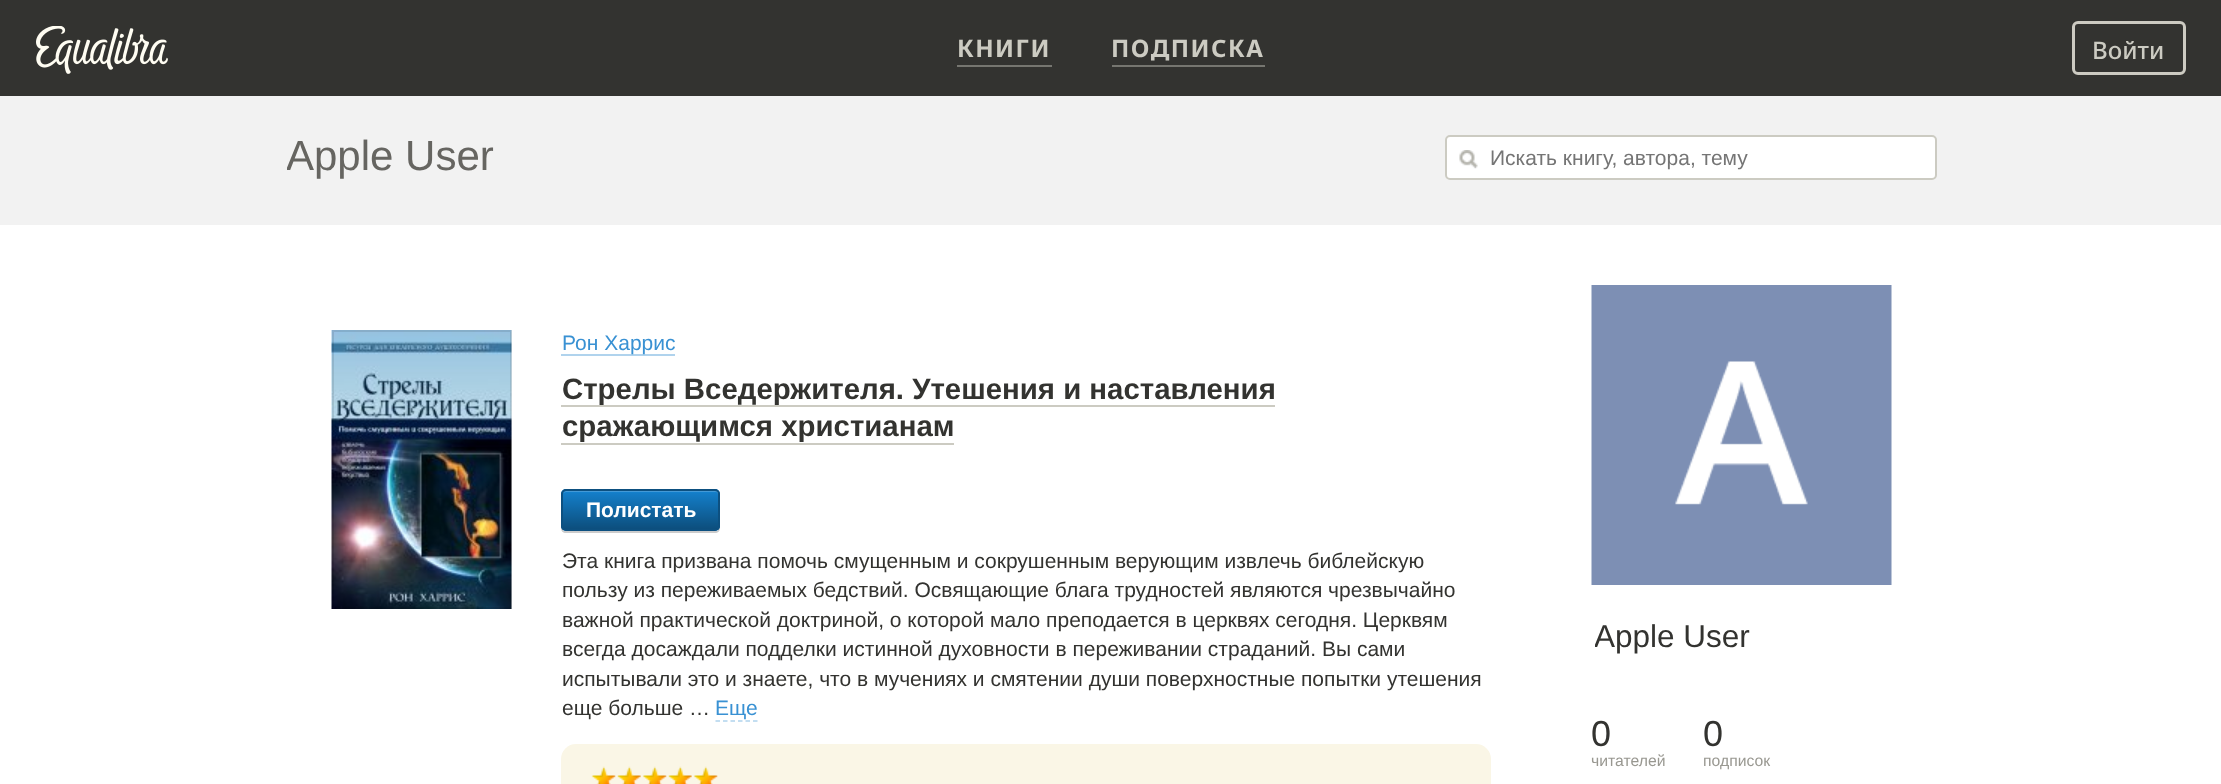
<svg xmlns="http://www.w3.org/2000/svg" width="2221" height="784" viewBox="0 0 2221 784">
  <defs>
    <clipPath id="clip1"><rect x="561" y="489" width="159" height="42" rx="5"/></clipPath>
    <linearGradient id="g1" gradientUnits="userSpaceOnUse" x1="641" y1="491" x2="641" y2="530"><stop offset="0" stop-color="#000" stop-opacity="0"/><stop offset="1" stop-color="#000" stop-opacity="0.4"/></linearGradient>
    <clipPath id="clip2"><path d="M287 66h207v135H287z"/></clipPath>
    <clipPath id="clip3"><path d="M1595 617h337v39H1595z"/></clipPath>
  </defs>
  <rect width="100%" height="100%" fill="#fff"/>
  <path d="M0 0h2221v96H0z" fill="#333330"/>
  <image x="36" y="26" width="132" height="48" href="img/1.png"/>
  <path d="M957 65h95v2H957z" fill="#767670"/>
  <path d="M1112 65h153v2H1112z" fill="#767670"/>
  <rect x="2073.5" y="22.5" width="111" height="51" rx="4.5" fill="none" stroke="#cdcbc2" stroke-width="3"/>
  <path d="M0 96h2221v129H0z" fill="#f2f2f2"/>
  <rect x="1446" y="136" width="490" height="43" rx="4" fill="#fff" stroke="#cccbc2" stroke-width="2"/>
  <image x="1459" y="150" width="19" height="19" href="img/2.png"/>
  <image x="331" y="330" width="181" height="279" href="img/3.png"/>
  <path d="M333 331h178v277H333z" fill="none" stroke="#0000001a" stroke-width="2"/>
  <path d="M561 354h114v2H561z" fill="#b0d3ed"/>
  <path d="M561 405h714v2H561z" fill="#cccbc2"/>
  <path d="M561 443h393v2H561z" fill="#cccbc2"/>
  <path d="M561 526V528C561 531 563 533 566 533H715C718 533 720 531 720 528V526C720 529 718 531 716 531H566C563 531 561 529 561 526Z" fill="#ccc"/>
  <rect x="561" y="489" width="159" height="42" rx="5" fill="#1480cc"/>
  <g clip-path="url(#clip1)">
    <path d="M561 493h159v37H561z" fill="url(#g1)"/>
  </g>
  <path d="M566 492H716C720 492 718 505 718 506V529C719 529 719 528 719 527V494C719 492 718 491 716 491H566C565 491 564 492 563 493Z" fill="#ffffff33"/>
  <rect x="562" y="490" width="157" height="40" rx="4" fill="none" stroke="#0d5080" stroke-width="2"/>
  <path d="M715.5 721H757.5" fill="none" stroke="#b0d3ed" stroke-width="1.5" stroke-dasharray="4.5 3"/>
  <rect x="561" y="744" width="930" height="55" rx="15" fill="#faf6e6"/>
  <image x="591" y="766" width="25" height="18" href="img/4.png"/>
  <image x="617" y="766" width="24" height="18" href="img/5.png"/>
  <image x="642" y="766" width="25" height="18" href="img/6.png"/>
  <image x="668" y="766" width="24" height="18" href="img/5.png"/>
  <image x="693" y="766" width="25" height="18" href="img/6.png"/>
  <image x="1591" y="285" width="301" height="300" href="img/7.png"/>
  <g font-family="Noto Sans" font-size="24" font-weight="bold" letter-spacing="1.5" fill="#cccbc2">
    <text x="957" y="57">КНИГИ</text>
    <text x="1111" y="57">ПОДПИСКА</text>
  </g>
  <text x="2092" y="59" font-family="Noto Sans" font-size="24" font-weight="500" fill="#cccbc2">Войти</text>
  <g clip-path="url(#clip2)">
    <text x="286" y="170" font-family="Liberation Sans" font-size="42" fill="#666561">Apple User</text>
  </g>
  <text x="1490" y="165" font-family="Liberation Sans" font-size="21" fill="#757575">Искать книгу, автора, тему</text>
  <text x="562" y="350" font-family="Liberation Sans" font-size="21" fill="#3991d3">Рон Харрис</text>
  <g font-family="Liberation Sans" font-size="29.4" font-weight="bold" fill="#333330">
    <text x="562" y="399">Стрелы Вседержителя. Утешения и наставления</text>
    <text x="562" y="436">сражающимся христианам</text>
  </g>
  <text x="586" y="517" font-family="Liberation Sans" font-size="21" font-weight="bold" fill="#fff">Полистать</text>
  <g font-family="Liberation Sans" font-size="21" fill="#333330">
    <text x="562" y="568">Эта книга призвана помочь смущенным и сокрушенным верующим извлечь библейскую</text>
    <text x="562" y="597">пользу из переживаемых бедствий. Освящающие блага трудностей являются чрезвычайно</text>
    <text x="562" y="627">важной практической доктриной, о которой мало преподается в церквях сегодня. Церквям</text>
    <text x="562" y="656">всегда досаждали подделки истинной духовности в переживании страданий. Вы сами</text>
    <text x="562" y="686">испытывали это и знаете, что в мучениях и смятении души поверхностные попытки утешения</text>
    <text x="562" y="715">еще больше …</text>
  </g>
  <text x="715" y="715" font-family="Liberation Sans" font-size="21" fill="#3991d3">Еще</text>
  <g clip-path="url(#clip3)">
    <text x="1594" y="647" font-family="Liberation Sans" font-size="31.5" fill="#333330">Apple User</text>
  </g>
  <text x="1591" y="746" font-family="Liberation Sans" font-size="36" fill="#333330">0</text>
  <text x="1591" y="766" font-family="Liberation Sans" font-size="15.75" fill="#999891">читателей</text>
  <text x="1703" y="746" font-family="Liberation Sans" font-size="36" fill="#333330">0</text>
  <text x="1703" y="766" font-family="Liberation Sans" font-size="15.75" fill="#999891">подписок</text>
</svg>
